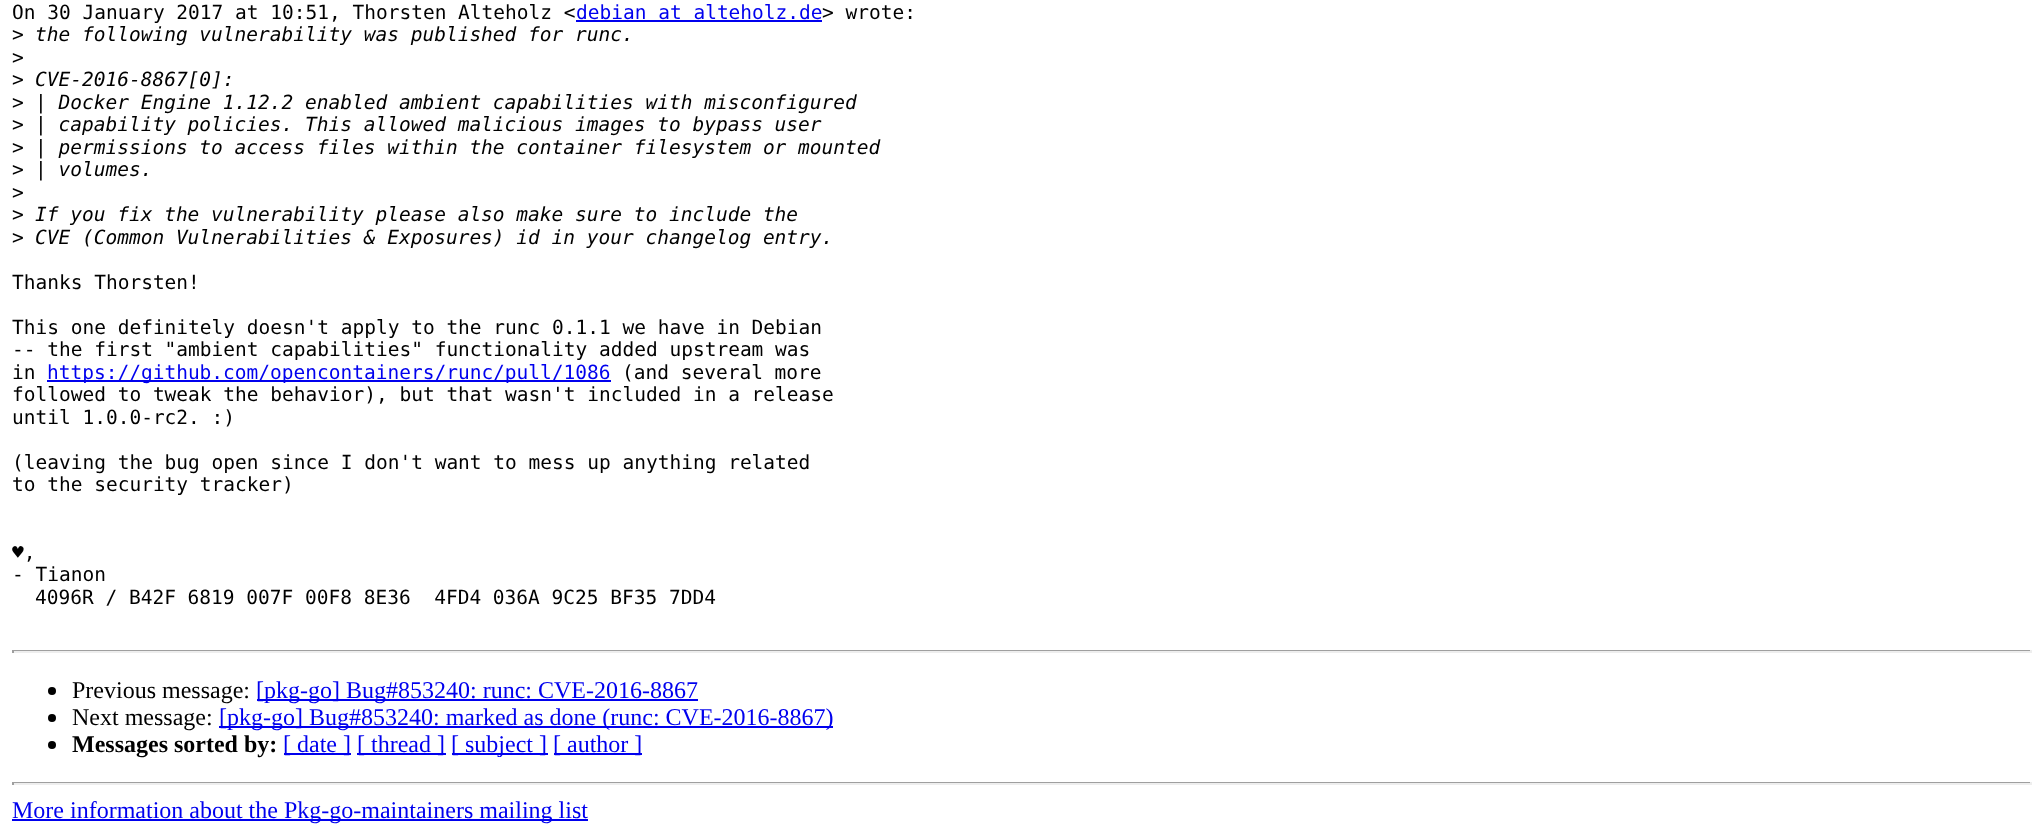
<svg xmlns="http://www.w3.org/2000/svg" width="2043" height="835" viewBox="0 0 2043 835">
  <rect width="100%" height="100%" fill="#fff"/>
  <path d="M576 20h246v2H576z" fill="#00e"/>
  <path d="M47 380h564v2H47z" fill="#00e"/>
  <path d="M12 650h2019v1H12z" fill="#9f9f9f"/>
  <path d="M2030 650h2v3H2030z" fill="#eee"/>
  <path d="M12 651h2019v2H12z" fill="#eee"/>
  <path d="M12 650h2v3H12z" fill="#9f9f9f"/>
  <circle cx="52" cy="691" r="4" fill="#000"/>
  <path d="M257 699h441v2H257z" fill="#00e"/>
  <circle cx="52" cy="718" r="4" fill="#000"/>
  <path d="M219 726h614v2H219z" fill="#00e"/>
  <circle cx="52" cy="745" r="4" fill="#000"/>
  <path d="M284 753h67v2H284z" fill="#00e"/>
  <path d="M357 753h89v2H357z" fill="#00e"/>
  <path d="M452 753h96v2H452z" fill="#00e"/>
  <path d="M554 753h88v2H554z" fill="#00e"/>
  <path d="M12 782h2019v1H12z" fill="#9f9f9f"/>
  <path d="M2030 782h2v3H2030z" fill="#eee"/>
  <path d="M12 783h2019v2H12z" fill="#eee"/>
  <path d="M12 782h2v3H12z" fill="#9f9f9f"/>
  <path d="M12 819h576v2H12z" fill="#00e"/>
  <text x="12" y="19" font-family="DejaVu Sans Mono" font-size="19.5" fill="#000">On 30 January 2017 at 10:51, Thorsten Alteholz &lt;</text>
  <text x="576" y="19" font-family="DejaVu Sans Mono" font-size="19.5" fill="#00e">debian at alteholz.de</text>
  <g font-family="DejaVu Sans Mono" font-size="19.5" fill="#000">
    <text x="822" y="19">&gt; wrote:</text>
    <text x="12" y="41">&gt;</text>
  </g>
  <text x="35" y="41" font-family="DejaVu Sans Mono" font-size="19.5" font-style="italic" fill="#000">the following vulnerability was published for runc.</text>
  <g font-family="DejaVu Sans Mono" font-size="19.5" fill="#000">
    <text x="12" y="64">&gt;</text>
    <text x="12" y="86">&gt;</text>
  </g>
  <text x="35" y="86" font-family="DejaVu Sans Mono" font-size="19.5" font-style="italic" fill="#000">CVE-2016-8867[0]:</text>
  <text x="12" y="109" font-family="DejaVu Sans Mono" font-size="19.5" fill="#000">&gt;</text>
  <text x="35" y="109" font-family="DejaVu Sans Mono" font-size="19.5" font-style="italic" fill="#000">| Docker Engine 1.12.2 enabled ambient capabilities with misconfigured</text>
  <text x="12" y="131" font-family="DejaVu Sans Mono" font-size="19.5" fill="#000">&gt;</text>
  <text x="35" y="131" font-family="DejaVu Sans Mono" font-size="19.5" font-style="italic" fill="#000">| capability policies. This allowed malicious images to bypass user</text>
  <text x="12" y="154" font-family="DejaVu Sans Mono" font-size="19.5" fill="#000">&gt;</text>
  <text x="35" y="154" font-family="DejaVu Sans Mono" font-size="19.5" font-style="italic" fill="#000">| permissions to access files within the container filesystem or mounted</text>
  <text x="12" y="176" font-family="DejaVu Sans Mono" font-size="19.5" fill="#000">&gt;</text>
  <text x="35" y="176" font-family="DejaVu Sans Mono" font-size="19.5" font-style="italic" fill="#000">| volumes.</text>
  <g font-family="DejaVu Sans Mono" font-size="19.5" fill="#000">
    <text x="12" y="199">&gt;</text>
    <text x="12" y="221">&gt;</text>
  </g>
  <text x="35" y="221" font-family="DejaVu Sans Mono" font-size="19.5" font-style="italic" fill="#000">If you fix the vulnerability please also make sure to include the</text>
  <text x="12" y="244" font-family="DejaVu Sans Mono" font-size="19.5" fill="#000">&gt;</text>
  <text x="35" y="244" font-family="DejaVu Sans Mono" font-size="19.5" font-style="italic" fill="#000">CVE (Common Vulnerabilities &amp; Exposures) id in your changelog entry.</text>
  <g font-family="DejaVu Sans Mono" font-size="19.5" fill="#000">
    <text x="12" y="289">Thanks Thorsten!</text>
    <text x="12" y="334">This one definitely doesn't apply to the runc 0.1.1 we have in Debian</text>
    <text x="12" y="356">-- the first "ambient capabilities" functionality added upstream was</text>
    <text x="12" y="379">in</text>
  </g>
  <text x="47" y="379" font-family="DejaVu Sans Mono" font-size="19.5" fill="#00e">https://github.com/opencontainers/runc/pull/1086</text>
  <g font-family="DejaVu Sans Mono" font-size="19.5" fill="#000">
    <text x="622" y="379">(and several more</text>
    <text x="12" y="401">followed to tweak the behavior), but that wasn't included in a release</text>
    <text x="12" y="424">until 1.0.0-rc2. :)</text>
    <text x="12" y="469">(leaving the bug open since I don't want to mess up anything related</text>
    <text x="12" y="491">to the security tracker)</text>
    <text x="12" y="559">♥,</text>
    <text x="12" y="581">- Tianon</text>
    <text x="35" y="604" xml:space="preserve">4096R / B42F 6819 007F 00F8 8E36  4FD4 036A 9C25 BF35 7DD4</text>
  </g>
  <text x="72" y="698" font-family="Liberation Serif" font-size="24" fill="#000">Previous message:</text>
  <text x="256" y="698" font-family="Liberation Serif" font-size="24" fill="#00e">[pkg-go] Bug#853240: runc: CVE-2016-8867</text>
  <text x="72" y="725" font-family="Liberation Serif" font-size="24" fill="#000">Next message:</text>
  <text x="219" y="725" font-family="Liberation Serif" font-size="24" fill="#00e">[pkg-go] Bug#853240: marked as done (runc: CVE-2016-8867)</text>
  <text x="72" y="752" font-family="Liberation Serif" font-size="24" font-weight="bold" fill="#000">Messages sorted by:</text>
  <g font-family="Liberation Serif" font-size="24" fill="#00e">
    <text x="283" y="752">[ date ]</text>
    <text x="357" y="752">[ thread ]</text>
    <text x="451" y="752">[ subject ]</text>
    <text x="553" y="752">[ author ]</text>
    <text x="12" y="818">More information about the Pkg-go-maintainers mailing list</text>
  </g>
</svg>
